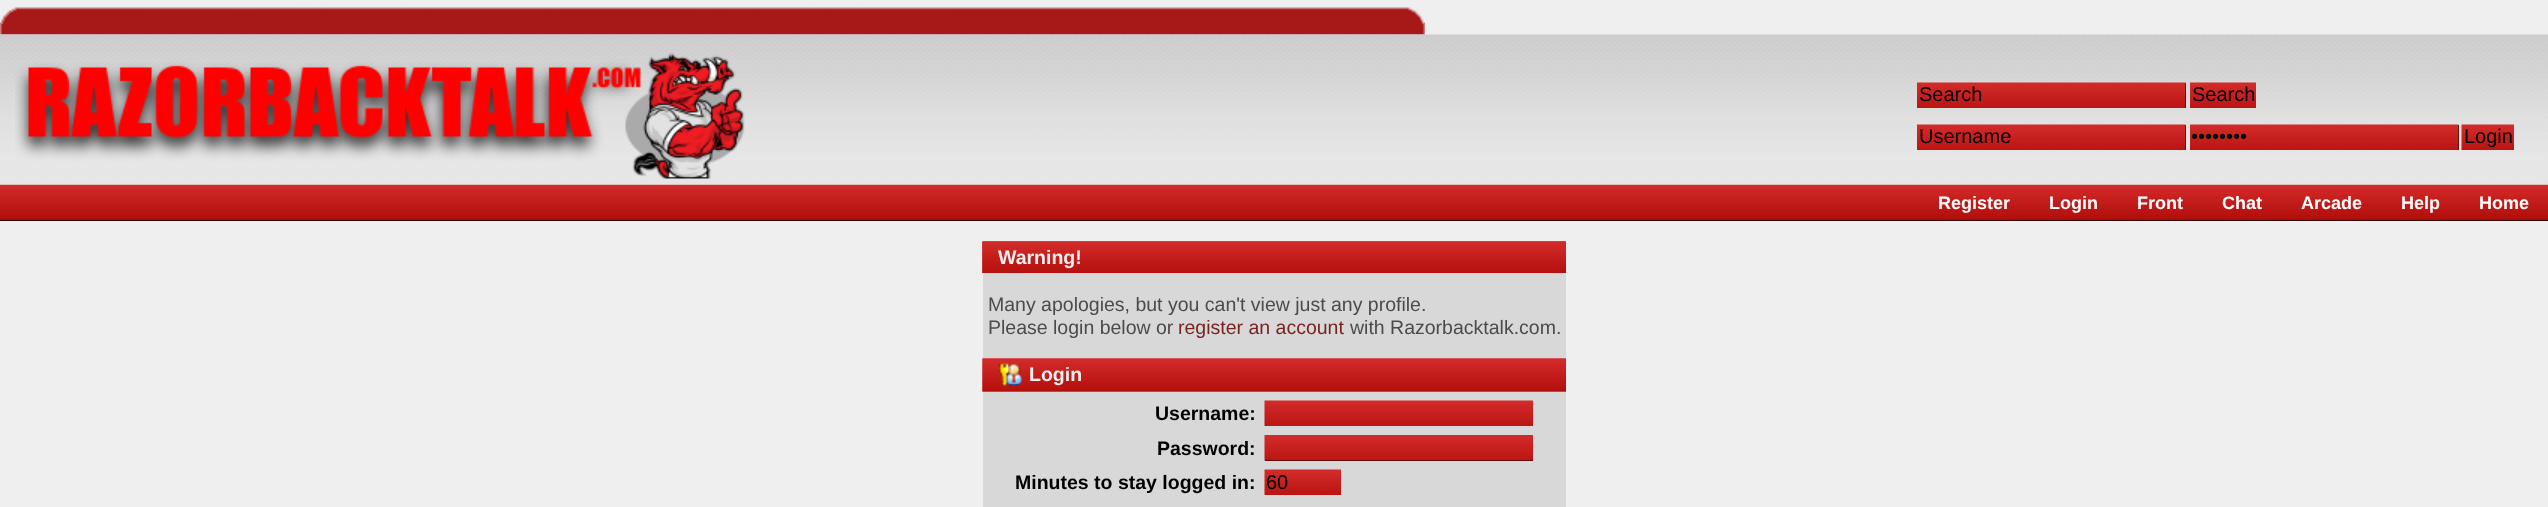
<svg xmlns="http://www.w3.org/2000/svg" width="2548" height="507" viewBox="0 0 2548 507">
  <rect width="100%" height="100%" fill="#efefef"/>
  <image x="0" y="7" width="1425" height="28" href="img/1.png"/>
  <image x="0" y="34" width="2548" height="151" href="img/2.png"/>
  <image x="15" y="52" width="730" height="127" href="img/3.png"/>
  <path d="M2185 83h1v25H2185z" fill="#000"/>
  <image x="1917" y="82" width="269" height="26" href="img/4.png"/>
  <image x="2190" y="82" width="66" height="26" href="img/5.png"/>
  <path d="M2185 125h1v25H2185z" fill="#000"/>
  <image x="1917" y="124" width="269" height="26" href="img/6.png"/>
  <path d="M2458 125h1v25H2458z" fill="#000"/>
  <image x="2190" y="124" width="269" height="26" href="img/7.png"/>
  <image x="2461" y="124" width="53" height="26" href="img/8.png"/>
  <path d="M0 220h2548v1H0z" fill="#000"/>
  <image x="0" y="184" width="2548" height="37" href="img/9.png"/>
  <image x="982" y="241" width="584" height="32" href="img/10.png"/>
  <path d="M983 273h583v86H983z" fill="#d9d8d8"/>
  <image x="982" y="358" width="584" height="34" href="img/11.png"/>
  <image x="998" y="363" width="24" height="23" href="img/12.png"/>
  <path d="M983 392h583v115H983z" fill="#d9d8d8"/>
  <image x="1264" y="400" width="269" height="26" href="img/13.png"/>
  <path d="M1265 460h268v1H1265z" fill="#000"/>
  <image x="1264" y="435" width="269" height="26" href="img/14.png"/>
  <image x="1264" y="469" width="77" height="26" href="img/15.png"/>
  <g font-family="Liberation Sans" font-size="20" fill="#000">
    <text x="1919" y="101">Search</text>
    <text x="2192" y="101">Search</text>
    <text x="1919" y="143">Username</text>
    <text x="2191" y="143">••••••••</text>
    <text x="2464" y="143">Login</text>
  </g>
  <g font-family="Liberation Sans" font-size="18" font-weight="bold" fill="#fff">
    <text x="1938" y="209">Register</text>
    <text x="2049" y="209">Login</text>
    <text x="2137" y="209">Front</text>
    <text x="2222" y="209">Chat</text>
    <text x="2301" y="209">Arcade</text>
    <text x="2401" y="209">Help</text>
    <text x="2479" y="209">Home</text>
  </g>
  <text x="998" y="264" font-family="Liberation Sans" font-size="19.5" font-weight="bold" fill="#efefef">Warning!</text>
  <g font-family="Liberation Sans" font-size="19.5" fill="#4b4b4b">
    <text x="988" y="311">Many apologies, but you can't view just any profile.</text>
    <text x="988" y="334">Please login below or</text>
  </g>
  <text x="1178" y="334" font-family="Liberation Sans" font-size="19.5" fill="#782222">register an account</text>
  <text x="1350" y="334" font-family="Liberation Sans" font-size="19.5" fill="#4b4b4b">with Razorbacktalk.com.</text>
  <text x="1029" y="381" font-family="Liberation Sans" font-size="19.5" font-weight="bold" fill="#efefef">Login</text>
  <g font-family="Liberation Sans" font-size="19.5" font-weight="bold" fill="#000">
    <text x="1155" y="420">Username:</text>
    <text x="1157" y="455">Password:</text>
    <text x="1015" y="489">Minutes to stay logged in:</text>
  </g>
  <text x="1266" y="489" font-family="Liberation Sans" font-size="20" fill="#000">60</text>
</svg>
